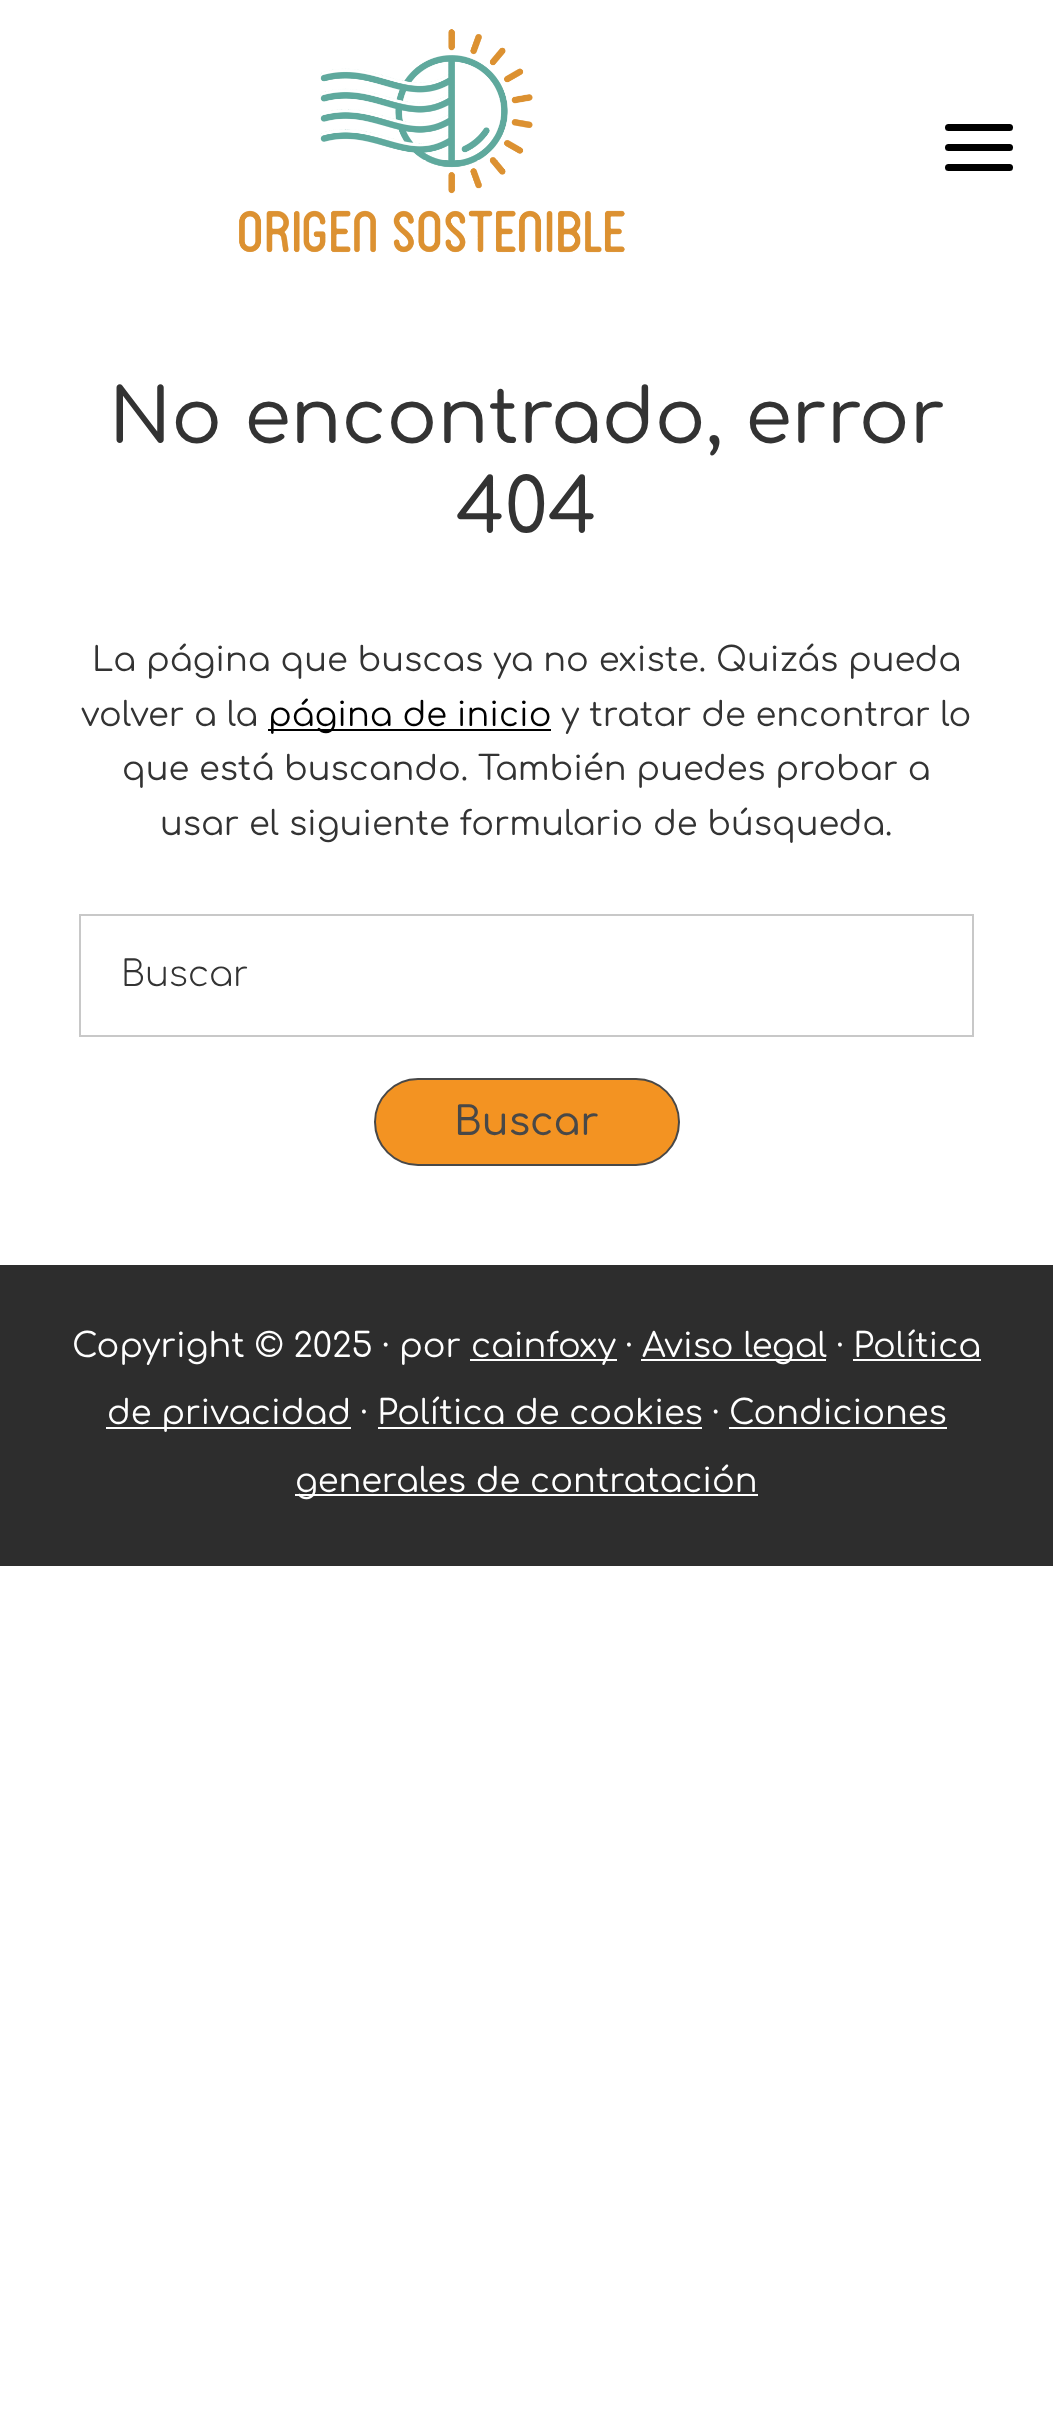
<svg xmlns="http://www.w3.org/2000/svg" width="1053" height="2417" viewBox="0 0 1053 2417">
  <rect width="100%" height="100%" fill="#fff"/>
  <image x="239" y="29" width="386" height="224" href="img/1.png"/>
  <rect x="945" y="124" width="68" height="7" rx="3.5" fill="#000"/>
  <rect x="945" y="144" width="68" height="7" rx="3.5" fill="#000"/>
  <rect x="945" y="164" width="68" height="7" rx="3.5" fill="#000"/>
  <path d="M268 729h283v2H268z" fill="#000"/>
  <path d="M80 915h893v121H80z" fill="none" stroke="#c8c8c8" stroke-width="2"/>
  <rect x="375" y="1079" width="304" height="86" rx="43" fill="#f39322" stroke="#484848" stroke-width="2"/>
  <path d="M0 1265h1053v301H0z" fill="#2d2d2d"/>
  <path d="M470 1359h147v2H470z" fill="#fff"/>
  <path d="M641 1359h185v2H641z" fill="#fff"/>
  <path d="M853 1359h128v2H853z" fill="#fff"/>
  <path d="M106 1427h245v2H106z" fill="#fff"/>
  <path d="M378 1427h324v2H378z" fill="#fff"/>
  <path d="M729 1427h218v2H729z" fill="#fff"/>
  <path d="M295 1494h463v2H295z" fill="#fff"/>
  <g font-family="Comfortaa" font-size="75.25" font-weight="500" fill="#333">
    <text x="109" y="443">No encontrado, error</text>
    <text x="456" y="533">404</text>
  </g>
  <g font-family="Comfortaa" font-size="33.65" fill="#333">
    <text x="92" y="671">La página que buscas ya no existe. Quizás pueda</text>
    <text x="81" y="726">volver a la</text>
  </g>
  <text x="268" y="726" font-family="Comfortaa" font-size="33.65" fill="#000">página de inicio</text>
  <g font-family="Comfortaa" font-size="33.65" fill="#333">
    <text x="561" y="726">y tratar de encontrar lo</text>
    <text x="122" y="780">que está buscando. También puedes probar a</text>
    <text x="160" y="835">usar el siguiente formulario de búsqueda.</text>
  </g>
  <text x="121" y="986" font-family="Comfortaa" font-size="35.5" font-weight="300" fill="#333">Buscar</text>
  <text x="454" y="1135" font-family="Comfortaa" font-size="39.5" font-weight="500" fill="#484848">Buscar</text>
  <g font-family="Comfortaa" font-size="33.65" fill="#fff">
    <text x="72" y="1357">Copyright © 2025 · por</text>
    <text x="471" y="1357">cainfoxy ·</text>
    <text x="642" y="1357">Aviso legal · Política</text>
    <text x="107" y="1424">de privacidad · Política de cookies · Condiciones</text>
    <text x="295" y="1492">generales de contratación</text>
  </g>
</svg>
